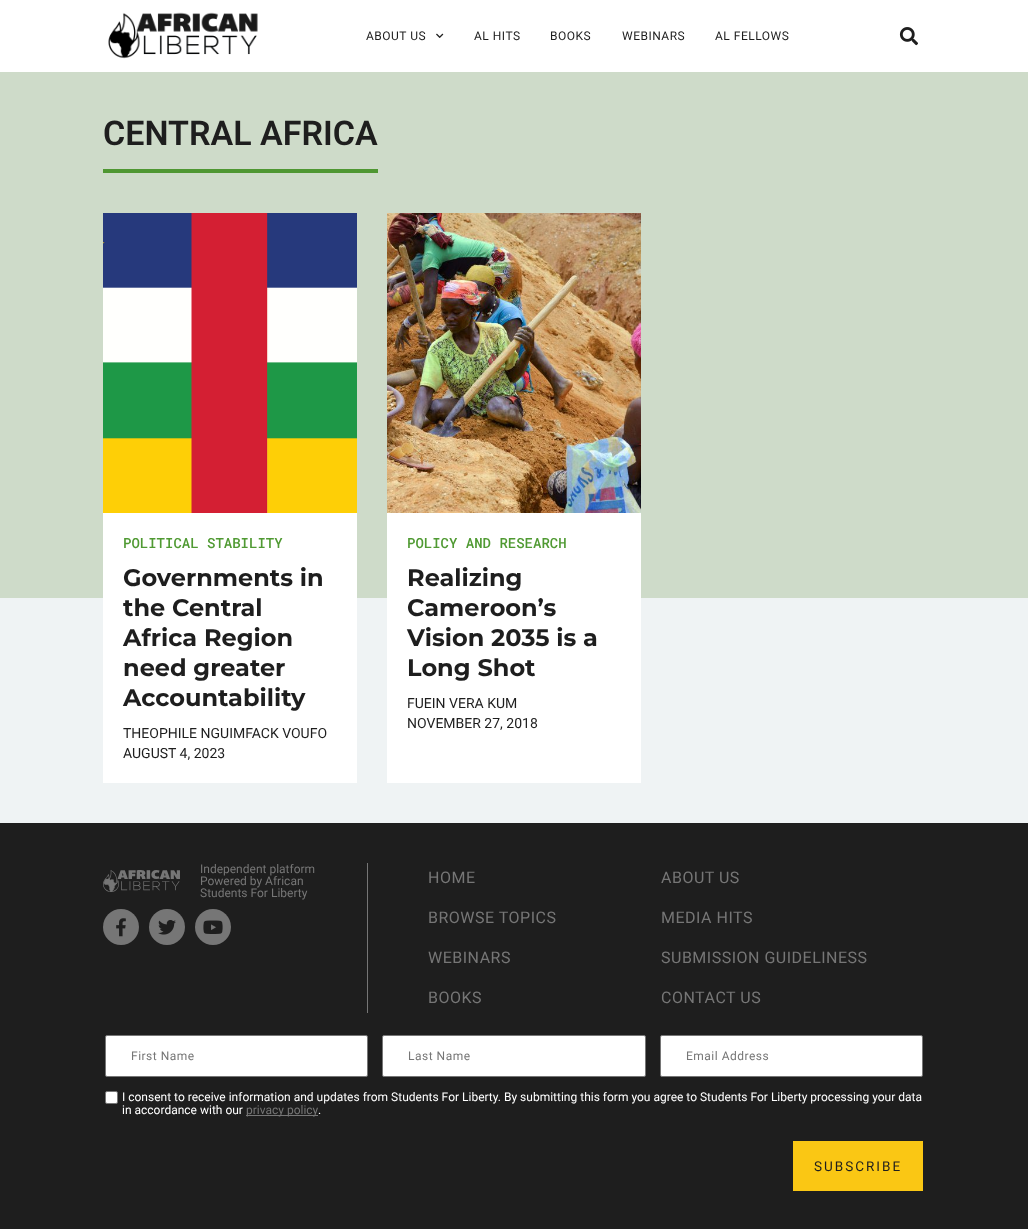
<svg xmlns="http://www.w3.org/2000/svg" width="1028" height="1229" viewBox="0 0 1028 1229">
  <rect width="100%" height="100%" fill="#fff"/>
  <image x="108" y="12" width="150" height="47" href="img/1.png"/>
  <image x="436" y="33" width="8" height="5" href="img/2.png"/>
  <image x="899" y="27" width="19" height="19" href="img/3.png"/>
  <path d="M0 72h1028v526H0z" fill="#cedbc9"/>
  <path d="M0 598h1028v225H0z" fill="#eff3f4"/>
  <path d="M103 169h275v4H103z" fill="#4f9732"/>
  <path d="M103 513h254v270H103z" fill="#fff"/>
  <image x="103" y="213" width="254" height="300" href="img/4.png"/>
  <path d="M387 513h254v270H387z" fill="#fff"/>
  <image x="387" y="213" width="254" height="300" href="img/5.png"/>
  <path d="M0 823h1028v406H0z" fill="#1e1e1e"/>
  <path d="M367 863h1v150H367z" fill="#767676"/>
  <image x="103" y="870" width="77" height="22" href="img/6.png"/>
  <circle cx="121" cy="927" r="18" fill="#767676"/>
  <image x="116" y="918" width="10" height="19" href="img/7.png"/>
  <circle cx="167" cy="927" r="18" fill="#767676"/>
  <image x="158" y="920" width="18" height="15" href="img/8.png"/>
  <circle cx="213" cy="927" r="18" fill="#767676"/>
  <image x="203" y="920" width="20" height="14" href="img/9.png"/>
  <rect x="105.5" y="1035.5" width="262" height="41" rx="1.5" fill="#fff" stroke="#767676"/>
  <rect x="382.5" y="1035.5" width="263" height="41" rx="1.5" fill="#fff" stroke="#767676"/>
  <rect x="660.5" y="1035.5" width="262" height="41" rx="1.5" fill="#fff" stroke="#767676"/>
  <rect x="105.5" y="1091.5" width="12" height="12" rx="1.5" fill="#fff" stroke="#767676"/>
  <path d="M246 1115h72v1H246z" fill="#767676"/>
  <path d="M793 1141h130v50H793z" fill="#fac714"/>
  <g font-family="Roboto" font-size="12" letter-spacing="0.5" fill="#1e1e1e">
    <text x="366" y="40">ABOUT US</text>
    <text x="474" y="40">AL HITS</text>
    <text x="550" y="40">BOOKS</text>
    <text x="622" y="40">WEBINARS</text>
    <text x="715" y="40">AL FELLOWS</text>
  </g>
  <text x="103" y="145" font-family="Roboto" font-size="34" font-weight="600" fill="#1e1e1e">CENTRAL AFRICA</text>
  <text x="123" y="548" font-family="Roboto Mono" font-size="14" font-weight="500" fill="#509a33">POLITICAL STABILITY</text>
  <g font-family="Montserrat" font-size="24" font-weight="bold" fill="#1e1e1e">
    <text x="123" y="586">Governments in</text>
    <text x="123" y="616">the Central</text>
    <text x="123" y="646">Africa Region</text>
    <text x="123" y="676">need greater</text>
    <text x="123" y="706">Accountability</text>
  </g>
  <g font-family="Roboto" font-size="14" fill="#1e1e1e">
    <text x="123" y="738">THEOPHILE NGUIMFACK VOUFO</text>
    <text x="123" y="758">AUGUST 4, 2023</text>
  </g>
  <text x="407" y="548" font-family="Roboto Mono" font-size="14" font-weight="500" fill="#509a33">POLICY AND RESEARCH</text>
  <g font-family="Montserrat" font-size="24" font-weight="bold" fill="#1e1e1e">
    <text x="407" y="586">Realizing</text>
    <text x="407" y="616">Cameroon’s</text>
    <text x="407" y="646">Vision 2035 is a</text>
    <text x="407" y="676">Long Shot</text>
  </g>
  <g font-family="Roboto" font-size="14" fill="#1e1e1e">
    <text x="407" y="708">FUEIN VERA KUM</text>
    <text x="407" y="728">NOVEMBER 27, 2018</text>
  </g>
  <g font-family="Roboto" font-size="12" fill="#767676">
    <text x="200" y="873">Independent platform</text>
    <text x="200" y="885">Powered by African</text>
    <text x="200" y="897">Students For Liberty</text>
  </g>
  <g font-family="Roboto" font-size="16" letter-spacing="0.5" fill="#767676">
    <text x="428" y="883">HOME</text>
    <text x="428" y="923">BROWSE TOPICS</text>
    <text x="428" y="963">WEBINARS</text>
    <text x="428" y="1003">BOOKS</text>
    <text x="661" y="883">ABOUT US</text>
    <text x="661" y="923">MEDIA HITS</text>
    <text x="661" y="963">SUBMISSION GUIDELINESS</text>
    <text x="661" y="1003">CONTACT US</text>
  </g>
  <g font-family="Roboto" font-size="12" letter-spacing="0.5" fill="#767676">
    <text x="131" y="1060">First Name</text>
    <text x="408" y="1060">Last Name</text>
    <text x="686" y="1060">Email Address</text>
  </g>
  <g font-family="Roboto" font-size="12" fill="#fff">
    <text x="122" y="1101">I consent to receive information and updates from Students For Liberty. By submitting this form you agree to Students For Liberty processing your data</text>
    <text x="122" y="1114">in accordance with our</text>
  </g>
  <text x="246" y="1114" font-family="Roboto" font-size="12" fill="#767676">privacy policy</text>
  <text x="318" y="1114" font-family="Roboto" font-size="12" fill="#fff">.</text>
  <text x="814" y="1171" font-family="Roboto" font-size="13.5" letter-spacing="2" fill="#1e1e1e">SUBSCRIBE</text>
</svg>
